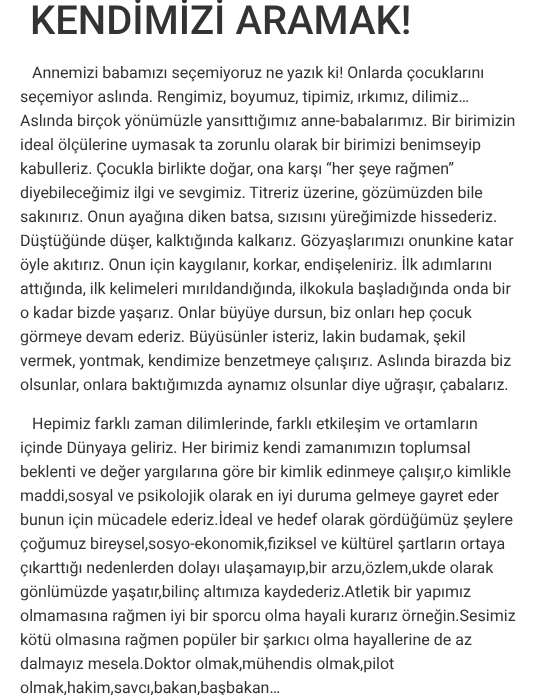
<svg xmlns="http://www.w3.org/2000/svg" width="533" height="695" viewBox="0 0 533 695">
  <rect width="100%" height="100%" fill="#fff"/>
  <text x="30" y="34" font-family="Roboto" font-size="40" font-weight="500" fill="#333">KENDİMİZİ ARAMAK!</text>
  <g font-family="Roboto" font-size="16" fill="#333">
    <text x="32" y="78">Annemizi babamızı seçemiyoruz ne yazık ki! Onlarda çocuklarını</text>
    <text x="20" y="102">seçemiyor aslında. Rengimiz, boyumuz, tipimiz, ırkımız, dilimiz…</text>
    <text x="20" y="126">Aslında birçok yönümüzle yansıttığımız anne-babalarımız. Bir birimizin</text>
    <text x="20" y="150">ideal ölçülerine uymasak ta zorunlu olarak bir birimizi benimseyip</text>
    <text x="20" y="174">kabulleriz. Çocukla birlikte doğar, ona karşı “her şeye rağmen”</text>
    <text x="20" y="198">diyebileceğimiz ilgi ve sevgimiz. Titreriz üzerine, gözümüzden bile</text>
    <text x="20" y="222">sakınırız. Onun ayağına diken batsa, sızısını yüreğimizde hissederiz.</text>
    <text x="20" y="246">Düştüğünde düşer, kalktığında kalkarız. Gözyaşlarımızı onunkine katar</text>
    <text x="20" y="270">öyle akıtırız. Onun için kaygılanır, korkar, endişeleniriz. İlk adımlarını</text>
    <text x="20" y="294">attığında, ilk kelimeleri mırıldandığında, ilkokula başladığında onda bir</text>
    <text x="20" y="318">o kadar bizde yaşarız. Onlar büyüye dursun, biz onları hep çocuk</text>
    <text x="20" y="342">görmeye devam ederiz. Büyüsünler isteriz, lakin budamak, şekil</text>
    <text x="20" y="366">vermek, yontmak, kendimize benzetmeye çalışırız. Aslında birazda biz</text>
    <text x="20" y="390">olsunlar, onlara baktığımızda aynamız olsunlar diye uğraşır, çabalarız.</text>
    <text x="32" y="429">Hepimiz farklı zaman dilimlerinde, farklı etkileşim ve ortamların</text>
    <text x="20" y="453">içinde Dünyaya geliriz. Her birimiz kendi zamanımızın toplumsal</text>
    <text x="20" y="477">beklenti ve değer yargılarına göre bir kimlik edinmeye çalışır,o kimlikle</text>
    <text x="20" y="501">maddi,sosyal ve psikolojik olarak en iyi duruma gelmeye gayret eder</text>
    <text x="20" y="525">bunun için mücadele ederiz.İdeal ve hedef olarak gördüğümüz şeylere</text>
    <text x="20" y="549">çoğumuz bireysel,sosyo-ekonomik,fiziksel ve kültürel şartların ortaya</text>
    <text x="20" y="573">çıkarttığı nedenlerden dolayı ulaşamayıp,bir arzu,özlem,ukde olarak</text>
    <text x="20" y="597">gönlümüzde yaşatır,bilinç altımıza kaydederiz.Atletik bir yapımız</text>
    <text x="20" y="621">olmamasına rağmen iyi bir sporcu olma hayali kurarız örneğin.Sesimiz</text>
    <text x="20" y="645">kötü olmasına rağmen popüler bir şarkıcı olma hayallerine de az</text>
    <text x="20" y="669">dalmayız mesela.Doktor olmak,mühendis olmak,pilot</text>
    <text x="20" y="693">olmak,hakim,savcı,bakan,başbakan…</text>
  </g>
</svg>
